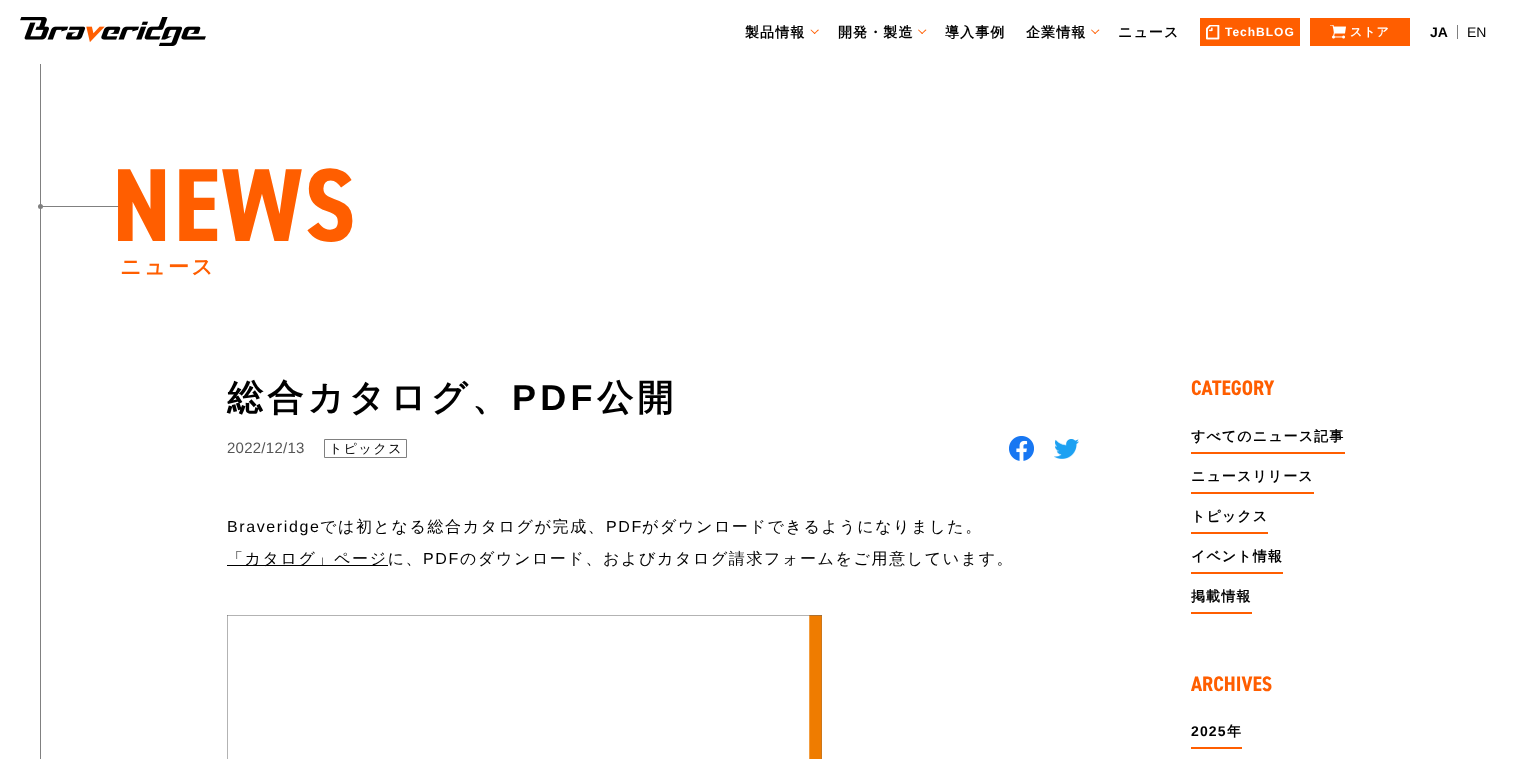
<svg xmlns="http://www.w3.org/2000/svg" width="1525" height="759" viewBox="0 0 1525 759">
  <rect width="100%" height="100%" fill="#fff"/>
  <image x="20" y="17" width="186" height="29" href="img/1.png"/>
  <path d="M819 30L814.5 34L814 33.5L818 29.5Z" fill="#ff5e00"/>
  <path d="M815.5 33.5L814.5 34L810.5 30L811 29.5Z" fill="#ff5e00"/>
  <path d="M926.5 30L922 34L921.5 33.5L925.5 29.5Z" fill="#ff5e00"/>
  <path d="M923 33.5L922 34L918 30L918.5 29.5Z" fill="#ff5e00"/>
  <path d="M1099.5 30L1095 34L1094.5 33.5L1098.5 29.5Z" fill="#ff5e00"/>
  <path d="M1096 33.5L1095 34L1091 30L1091.5 29.5Z" fill="#ff5e00"/>
  <path d="M1200 18h100v28H1200z" fill="#ff5e00"/>
  <image x="1206" y="25" width="14" height="15" href="img/2.png"/>
  <path d="M1310 18h100v28H1310z" fill="#ff5e00"/>
  <image x="1330" y="25" width="16" height="14" href="img/3.png"/>
  <path d="M1457 25h1v14H1457z" fill="#808080"/>
  <path d="M40 64h1v695H40z" fill="#808080"/>
  <circle cx="40.5" cy="206.5" r="2.5" fill="#808080"/>
  <path d="M38 206h82v1H38z" fill="#808080"/>
  <path d="M324.5 439.5h82v18H324.5z" fill="none" stroke="#808080"/>
  <image x="1009" y="436" width="25" height="25" href="img/4.png"/>
  <image x="1054" y="439" width="25" height="20" href="img/5.png"/>
  <path d="M227 565h161v1H227z" fill="#000"/>
  <image x="227" y="615" width="595" height="144" href="img/6.png"/>
  <path d="M1191 452h154v2H1191z" fill="#ff5e00"/>
  <path d="M1191 492h123v2H1191z" fill="#ff5e00"/>
  <path d="M1191 532h77v2H1191z" fill="#ff5e00"/>
  <path d="M1191 572h92v2H1191z" fill="#ff5e00"/>
  <path d="M1191 612h61v2H1191z" fill="#ff5e00"/>
  <path d="M1191 747h51v2H1191z" fill="#ff5e00"/>
  <g font-family="WenQuanYi Zen Hei" font-size="14" font-weight="bold" letter-spacing="1.1" fill="#000">
    <text x="745" y="37">製品情報</text>
    <text x="838" y="37">開発・製造</text>
    <text x="945" y="37">導入事例</text>
    <text x="1026" y="37">企業情報</text>
    <text x="1118" y="37">ニュース</text>
  </g>
  <text x="1225" y="36" font-family="Liberation Sans" font-size="12" font-weight="bold" letter-spacing="1" fill="#fff">TechBLOG</text>
  <text x="1350" y="36" font-family="WenQuanYi Zen Hei" font-size="12" font-weight="bold" letter-spacing="1" fill="#fff">ストア</text>
  <text x="1430" y="37" font-family="Liberation Sans" font-size="14" font-weight="bold" fill="#000">JA</text>
  <text x="1467" y="37" font-family="Liberation Sans" font-size="14" fill="#000">EN</text>
  <text x="112" y="241" font-family="'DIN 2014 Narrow'" font-size="104" font-weight="bold" letter-spacing="2" fill="#ff5e00">NEWS</text>
  <text x="120" y="274" font-family="WenQuanYi Zen Hei" font-size="21" font-weight="bold" letter-spacing="2.5" fill="#ff5e00">ニュース</text>
  <text x="227" y="410" font-family="WenQuanYi Zen Hei" font-size="36" font-weight="bold" letter-spacing="4.25" fill="#000">総合カタログ、</text>
  <text x="512" y="410" font-family="Liberation Sans" font-size="36" font-weight="bold" letter-spacing="4.25" fill="#000">PDF</text>
  <text x="597" y="410" font-family="WenQuanYi Zen Hei" font-size="36" font-weight="bold" letter-spacing="4.25" fill="#000">公開</text>
  <text x="227" y="453" font-family="Liberation Sans" font-size="15" letter-spacing="0.25" fill="#555">2022/12/13</text>
  <text x="329" y="453" font-family="WenQuanYi Zen Hei" font-size="13" font-weight="500" letter-spacing="1.5" fill="#000">トピックス</text>
  <text x="227" y="532" font-family="Liberation Sans" font-size="16" letter-spacing="1.6" fill="#000">Braveridge</text>
  <text x="320" y="532" font-family="WenQuanYi Zen Hei" font-size="16" font-weight="500" letter-spacing="1.6" fill="#000">では初となる総合カタログが完成、</text>
  <text x="606" y="532" font-family="Liberation Sans" font-size="16" letter-spacing="1.6" fill="#000">PDF</text>
  <g font-family="WenQuanYi Zen Hei" font-size="16" font-weight="500" letter-spacing="1.6" fill="#000">
    <text x="642" y="532">がダウンロードできるようになりました。</text>
    <text x="227" y="564">「カタログ」ページに、</text>
  </g>
  <text x="423" y="564" font-family="Liberation Sans" font-size="16" letter-spacing="1.6" fill="#000">PDF</text>
  <text x="460" y="564" font-family="WenQuanYi Zen Hei" font-size="16" font-weight="500" letter-spacing="1.6" fill="#000">のダウンロード、およびカタログ請求フォームをご用意しています。</text>
  <text x="1191" y="395" font-family="'DIN 2014 Narrow'" font-size="21" font-weight="bold" fill="#ff5e00">CATEGORY</text>
  <g font-family="WenQuanYi Zen Hei" font-size="14" font-weight="bold" letter-spacing="1.1" fill="#000">
    <text x="1191" y="441">すべてのニュース記事</text>
    <text x="1191" y="481">ニュースリリース</text>
    <text x="1191" y="521">トピックス</text>
    <text x="1191" y="561">イベント情報</text>
    <text x="1191" y="601">掲載情報</text>
  </g>
  <text x="1191" y="691" font-family="'DIN 2014 Narrow'" font-size="21" font-weight="bold" fill="#ff5e00">ARCHIVES</text>
  <text x="1191" y="736" font-family="Liberation Sans" font-size="14" font-weight="bold" letter-spacing="1.1" fill="#000">2025</text>
  <text x="1227" y="736" font-family="WenQuanYi Zen Hei" font-size="14" font-weight="bold" letter-spacing="1.1" fill="#000">年</text>
</svg>
